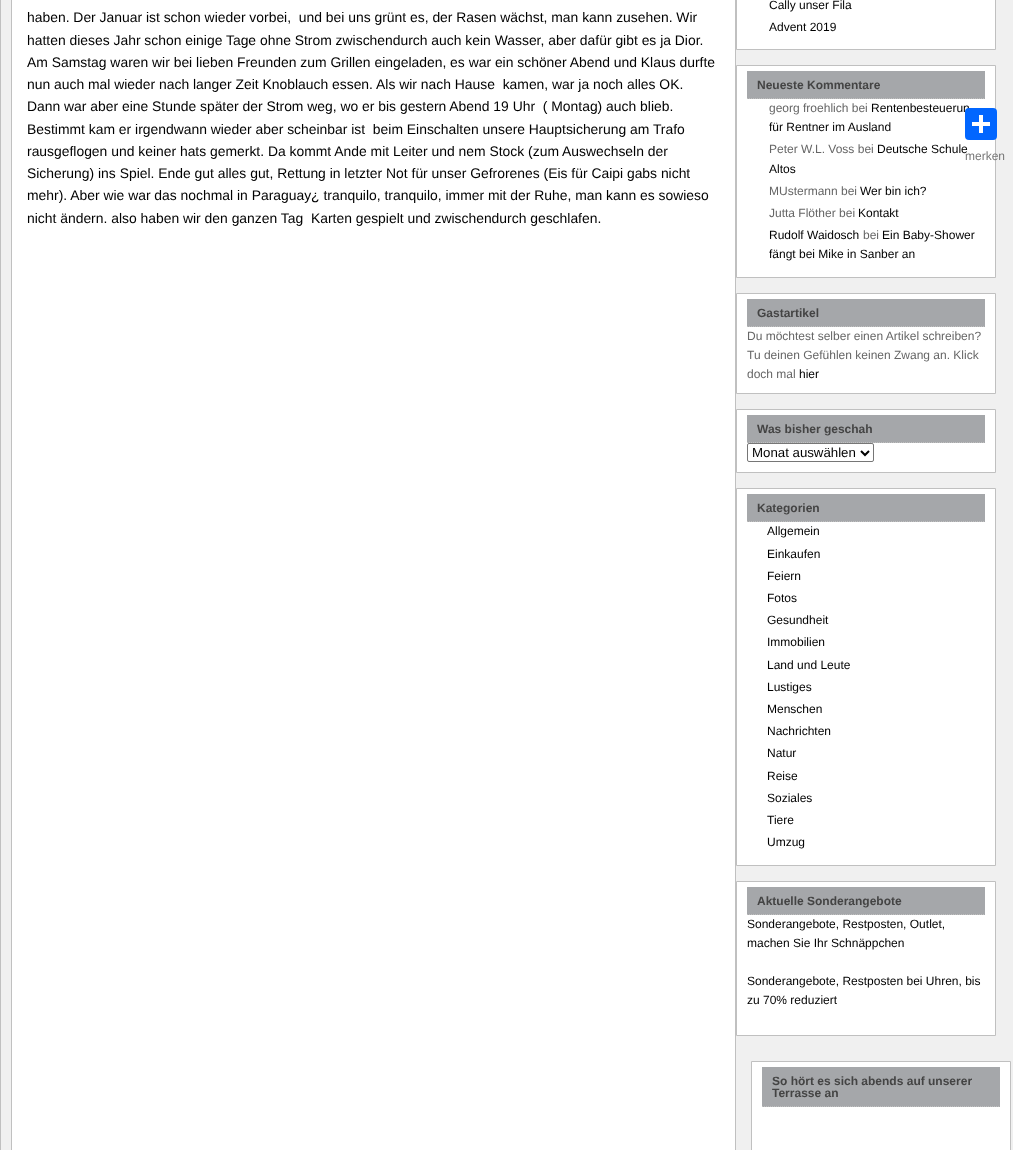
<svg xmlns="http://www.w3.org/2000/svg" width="1013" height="1150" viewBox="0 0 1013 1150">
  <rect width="100%" height="100%" fill="#f0f0f0"/>
  <path d="M0.5 -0.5h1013v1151H0.5z" fill="none" stroke="#c0c0c0"/>
  <path d="M11.5 -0.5h724v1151H11.5z" fill="#fff" stroke="#c0c0c0"/>
  <path d="M736.5 -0.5h259v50H736.5z" fill="#fff" stroke="#c0c0c0"/>
  <path d="M736.5 65.5h259v212H736.5z" fill="#fff" stroke="#c0c0c0"/>
  <path d="M747 71h238v28H747z" fill="#a5a7aa"/>
  <path d="M747 98.5H985" fill="none" stroke="#c0c0c0" stroke-dasharray="1 1"/>
  <path d="M736.5 293.5h259v100H736.5z" fill="#fff" stroke="#c0c0c0"/>
  <path d="M747 299h238v28H747z" fill="#a5a7aa"/>
  <path d="M747 326.5H985" fill="none" stroke="#c0c0c0" stroke-dasharray="1 1"/>
  <path d="M736.5 409.5h259v63H736.5z" fill="#fff" stroke="#c0c0c0"/>
  <path d="M747 415h238v28H747z" fill="#a5a7aa"/>
  <path d="M747 442.5H985" fill="none" stroke="#c0c0c0" stroke-dasharray="1 1"/>
  <rect x="747.5" y="443.5" width="126" height="18" rx="1.5" fill="none" stroke="#767676"/>
  <path d="M861 451L865 455L869 451" fill="none" stroke="#000" stroke-width="2"/>
  <path d="M736.5 488.5h259v377H736.5z" fill="#fff" stroke="#c0c0c0"/>
  <path d="M747 494h238v28H747z" fill="#a5a7aa"/>
  <path d="M747 521.5H985" fill="none" stroke="#c0c0c0" stroke-dasharray="1 1"/>
  <path d="M736.5 881.5h259v154H736.5z" fill="#fff" stroke="#c0c0c0"/>
  <path d="M747 887h238v28H747z" fill="#a5a7aa"/>
  <path d="M747 914.5H985" fill="none" stroke="#c0c0c0" stroke-dasharray="1 1"/>
  <path d="M751.5 1061.5h259v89H751.5z" fill="#fff" stroke="#c0c0c0"/>
  <path d="M762 1067h238v40H762z" fill="#a5a7aa"/>
  <path d="M762 1106.5H1000" fill="none" stroke="#c0c0c0" stroke-dasharray="1 1"/>
  <g font-family="Liberation Sans" font-size="13.9" fill="#000">
    <text x="27" y="22" xml:space="preserve">haben. Der Januar ist schon wieder vorbei,  und bei uns grünt es, der Rasen wächst, man kann zusehen. Wir</text>
    <text x="27" y="45">hatten dieses Jahr schon einige Tage ohne Strom zwischendurch auch kein Wasser, aber dafür gibt es ja Dior.</text>
    <text x="27" y="67">Am Samstag waren wir bei lieben Freunden zum Grillen eingeladen, es war ein schöner Abend und Klaus durfte</text>
    <text x="27" y="89" xml:space="preserve">nun auch mal wieder nach langer Zeit Knoblauch essen. Als wir nach Hause  kamen, war ja noch alles OK.</text>
    <text x="27" y="111" xml:space="preserve">Dann war aber eine Stunde später der Strom weg, wo er bis gestern Abend 19 Uhr  ( Montag) auch blieb.</text>
    <text x="27" y="134" xml:space="preserve">Bestimmt kam er irgendwann wieder aber scheinbar ist  beim Einschalten unsere Hauptsicherung am Trafo</text>
    <text x="27" y="156">rausgeflogen und keiner hats gemerkt. Da kommt Ande mit Leiter und nem Stock (zum Auswechseln der</text>
    <text x="27" y="178">Sicherung) ins Spiel. Ende gut alles gut, Rettung in letzter Not für unser Gefrorenes (Eis für Caipi gabs nicht</text>
    <text x="27" y="200">mehr). Aber wie war das nochmal in Paraguay¿ tranquilo, tranquilo, immer mit der Ruhe, man kann es sowieso</text>
    <text x="27" y="223" xml:space="preserve">nicht ändern. also haben wir den ganzen Tag  Karten gespielt und zwischendurch geschlafen.</text>
  </g>
  <g font-family="Liberation Sans" font-size="12" fill="#000">
    <text x="769" y="9">Cally unser Fila</text>
    <text x="769" y="31">Advent 2019</text>
  </g>
  <text x="757" y="89" font-family="Liberation Sans" font-size="12" font-weight="bold" fill="#444">Neueste Kommentare</text>
  <text x="769" y="112" font-family="Liberation Sans" font-size="12" fill="#666">georg froehlich bei</text>
  <g font-family="Liberation Sans" font-size="12" fill="#000">
    <text x="871" y="112">Rentenbesteuerun</text>
    <text x="769" y="131">für Rentner im Ausland</text>
  </g>
  <text x="769" y="153" font-family="Liberation Sans" font-size="12" fill="#666">Peter W.L. Voss bei</text>
  <g font-family="Liberation Sans" font-size="12" fill="#000">
    <text x="877" y="153">Deutsche Schule</text>
    <text x="769" y="173">Altos</text>
  </g>
  <text x="769" y="195" font-family="Liberation Sans" font-size="12" fill="#666">MUstermann bei</text>
  <text x="860" y="195" font-family="Liberation Sans" font-size="12" fill="#000">Wer bin ich?</text>
  <text x="769" y="217" font-family="Liberation Sans" font-size="12" fill="#666">Jutta Flöther bei</text>
  <g font-family="Liberation Sans" font-size="12" fill="#000">
    <text x="858" y="217">Kontakt</text>
    <text x="769" y="239">Rudolf Waidosch</text>
  </g>
  <text x="863" y="239" font-family="Liberation Sans" font-size="12" fill="#666">bei</text>
  <g font-family="Liberation Sans" font-size="12" fill="#000">
    <text x="882" y="239">Ein Baby-Shower</text>
    <text x="769" y="258">fängt bei Mike in Sanber an</text>
  </g>
  <text x="757" y="317" font-family="Liberation Sans" font-size="12" font-weight="bold" fill="#444">Gastartikel</text>
  <g font-family="Liberation Sans" font-size="12" fill="#666">
    <text x="747" y="340">Du möchtest selber einen Artikel schreiben?</text>
    <text x="747" y="359">Tu deinen Gefühlen keinen Zwang an. Klick</text>
    <text x="747" y="378">doch mal</text>
  </g>
  <text x="799" y="378" font-family="Liberation Sans" font-size="12" fill="#000">hier</text>
  <text x="757" y="433" font-family="Liberation Sans" font-size="12" font-weight="bold" fill="#444">Was bisher geschah</text>
  <text x="752" y="457" font-family="Liberation Sans" font-size="13.25" fill="#000">Monat auswählen</text>
  <text x="757" y="512" font-family="Liberation Sans" font-size="12" font-weight="bold" fill="#444">Kategorien</text>
  <g font-family="Liberation Sans" font-size="12" fill="#000">
    <text x="767" y="535">Allgemein</text>
    <text x="767" y="558">Einkaufen</text>
    <text x="767" y="580">Feiern</text>
    <text x="767" y="602">Fotos</text>
    <text x="767" y="624">Gesundheit</text>
    <text x="767" y="646">Immobilien</text>
    <text x="767" y="669">Land und Leute</text>
    <text x="767" y="691">Lustiges</text>
    <text x="767" y="713">Menschen</text>
    <text x="767" y="735">Nachrichten</text>
    <text x="767" y="757">Natur</text>
    <text x="767" y="780">Reise</text>
    <text x="767" y="802">Soziales</text>
    <text x="767" y="824">Tiere</text>
    <text x="767" y="846">Umzug</text>
  </g>
  <text x="757" y="905" font-family="Liberation Sans" font-size="12" font-weight="bold" fill="#444">Aktuelle Sonderangebote</text>
  <g font-family="Liberation Sans" font-size="12" fill="#000">
    <text x="747" y="928">Sonderangebote, Restposten, Outlet,</text>
    <text x="747" y="947">machen Sie Ihr Schnäppchen</text>
    <text x="747" y="985">Sonderangebote, Restposten bei Uhren, bis</text>
    <text x="747" y="1004">zu 70% reduziert</text>
  </g>
  <g font-family="Liberation Sans" font-size="12" font-weight="bold" fill="#444">
    <text x="772" y="1085">So hört es sich abends auf unserer</text>
    <text x="772" y="1097">Terrasse an</text>
  </g>
  <rect x="965" y="108" width="32" height="32" rx="4" fill="#0166ff"/>
  <path d="M979 115h4v18H979z" fill="#fff"/>
  <path d="M972 122h18v4H972z" fill="#fff"/>
  <text x="965" y="160" font-family="Liberation Sans" font-size="12" fill="#787878">merken</text>
</svg>
